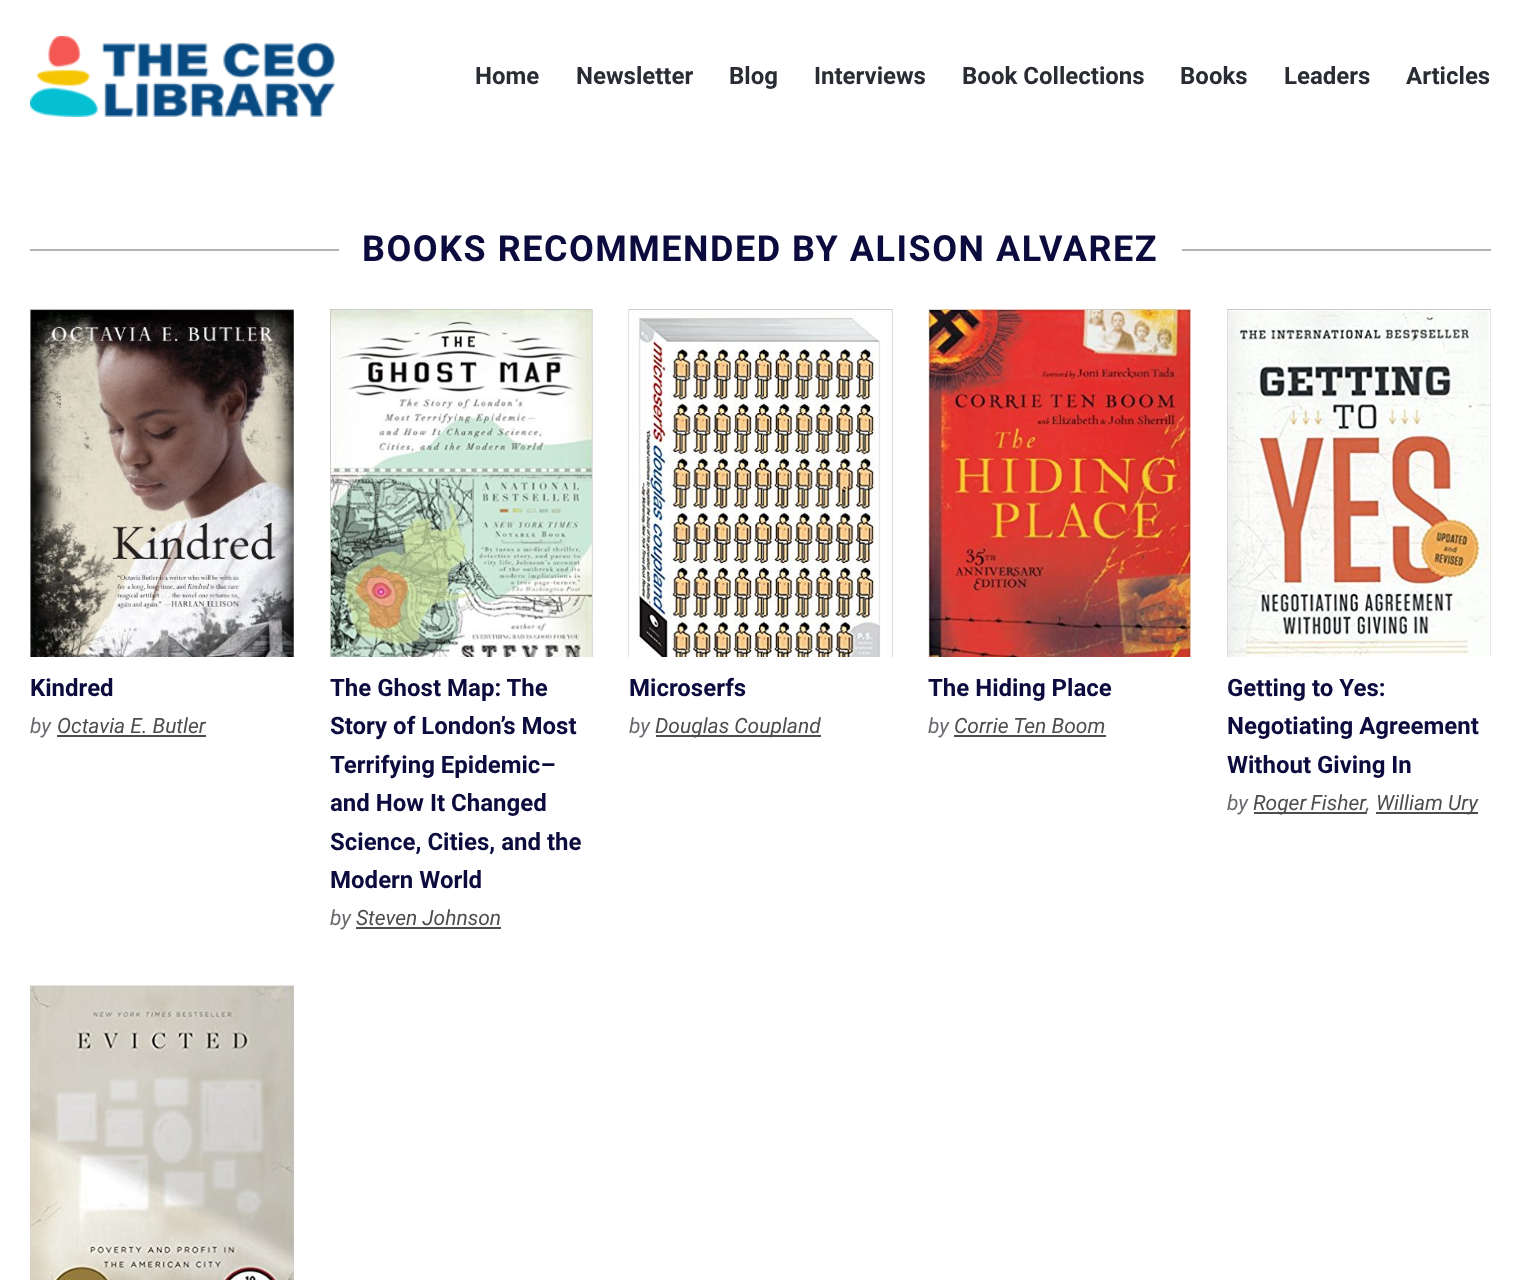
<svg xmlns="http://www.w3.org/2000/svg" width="1521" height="1280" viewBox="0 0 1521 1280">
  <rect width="100%" height="100%" fill="#fff"/>
  <image x="30" y="36" width="305" height="81" href="img/1.png"/>
  <path d="M30 249h1461v2H30z" fill="#b3b3b3"/>
  <path d="M339 249h843v2H339z" fill="#fff"/>
  <image x="30" y="309" width="264" height="348" href="img/2.png"/>
  <path d="M57 735h149v2H57z" fill="#4d4d4d"/>
  <path d="M592 309h1v348H592z" fill="#f1f1f1"/>
  <image x="330" y="309" width="263" height="348" href="img/3.png"/>
  <path d="M356 927h145v2H356z" fill="#4d4d4d"/>
  <path d="M892 309h1v348H892z" fill="#f1f1f1"/>
  <image x="628" y="309" width="265" height="348" href="img/4.png"/>
  <path d="M656 735h165v2H656z" fill="#4d4d4d"/>
  <image x="928" y="309" width="263" height="348" href="img/5.png"/>
  <path d="M954 735h152v2H954z" fill="#4d4d4d"/>
  <image x="1227" y="309" width="264" height="348" href="img/6.png"/>
  <path d="M1254 812h113v2H1254z" fill="#4d4d4d"/>
  <path d="M1376 812h102v2H1376z" fill="#4d4d4d"/>
  <image x="30" y="985" width="264" height="295" href="img/7.png"/>
  <g font-family="Roboto" font-size="24" font-weight="bold" fill="#292c33">
    <text x="475" y="84">Home</text>
    <text x="576" y="84">Newsletter</text>
    <text x="729" y="84">Blog</text>
    <text x="814" y="84">Interviews</text>
    <text x="962" y="84">Book Collections</text>
    <text x="1180" y="84">Books</text>
    <text x="1284" y="84">Leaders</text>
    <text x="1406" y="84">Articles</text>
  </g>
  <text x="362" y="261" font-family="Roboto" font-size="36" font-weight="bold" letter-spacing="1.5" fill="#0c0b3e">BOOKS RECOMMENDED BY ALISON ALVAREZ</text>
  <text x="30" y="696" font-family="Roboto" font-size="24" font-weight="bold" fill="#0c0b3e">Kindred</text>
  <text x="30" y="733" font-family="Roboto" font-size="21" font-style="italic" fill="#696b70">by</text>
  <text x="57" y="733" font-family="Roboto" font-size="21" font-style="italic" fill="#4d4d4d">Octavia E. Butler</text>
  <g font-family="Roboto" font-size="24" font-weight="bold" fill="#0c0b3e">
    <text x="330" y="696">The Ghost Map: The</text>
    <text x="330" y="734">Story of London’s Most</text>
    <text x="330" y="773">Terrifying Epidemic–</text>
    <text x="330" y="811">and How It Changed</text>
    <text x="330" y="850">Science, Cities, and the</text>
    <text x="330" y="888">Modern World</text>
  </g>
  <text x="330" y="925" font-family="Roboto" font-size="21" font-style="italic" fill="#696b70">by</text>
  <text x="356" y="925" font-family="Roboto" font-size="21" font-style="italic" fill="#4d4d4d">Steven Johnson</text>
  <text x="629" y="696" font-family="Roboto" font-size="24" font-weight="bold" fill="#0c0b3e">Microserfs</text>
  <text x="629" y="733" font-family="Roboto" font-size="21" font-style="italic" fill="#696b70">by</text>
  <text x="655" y="733" font-family="Roboto" font-size="21" font-style="italic" fill="#4d4d4d">Douglas Coupland</text>
  <text x="928" y="696" font-family="Roboto" font-size="24" font-weight="bold" fill="#0c0b3e">The Hiding Place</text>
  <text x="928" y="733" font-family="Roboto" font-size="21" font-style="italic" fill="#696b70">by</text>
  <text x="954" y="733" font-family="Roboto" font-size="21" font-style="italic" fill="#4d4d4d">Corrie Ten Boom</text>
  <g font-family="Roboto" font-size="24" font-weight="bold" fill="#0c0b3e">
    <text x="1227" y="696">Getting to Yes:</text>
    <text x="1227" y="734">Negotiating Agreement</text>
    <text x="1227" y="773">Without Giving In</text>
  </g>
  <text x="1227" y="810" font-family="Roboto" font-size="21" font-style="italic" fill="#696b70">by</text>
  <g font-family="Roboto" font-size="21" font-style="italic" fill="#4d4d4d">
    <text x="1253" y="810" word-spacing="-1">Roger Fisher</text>
    <text x="1376" y="810">William Ury</text>
  </g>
  <text x="1366" y="810" font-family="Roboto" font-size="21" font-style="italic" fill="#696b70">,</text>
</svg>
